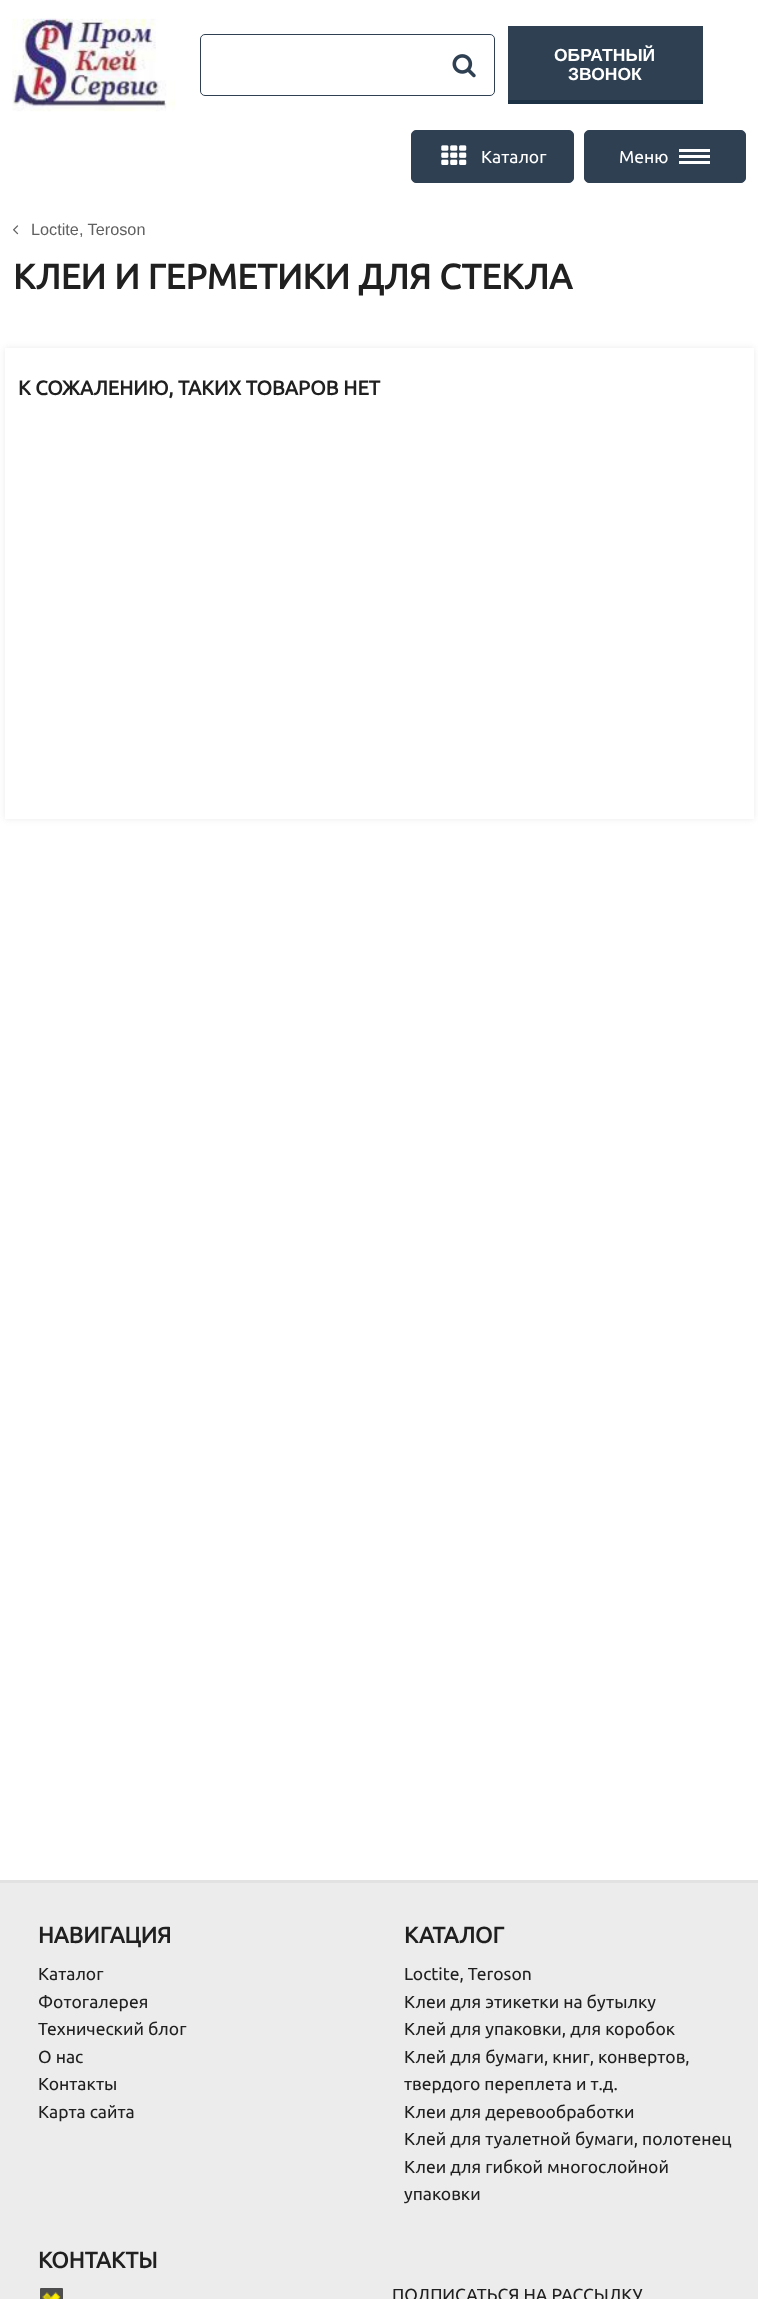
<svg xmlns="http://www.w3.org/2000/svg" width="758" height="2299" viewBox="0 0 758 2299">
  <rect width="100%" height="100%" fill="#ececec"/>
  <path d="M0 0h758v1880H0z" fill="#fff"/>
  <image x="12" y="18" width="163" height="94" href="img/1.png"/>
  <rect x="200.5" y="34.5" width="294" height="61" rx="4.5" fill="none" stroke="#2f4052"/>
  <image x="452" y="54" width="24" height="24" href="img/2.png"/>
  <path d="M508 26h195v74H508z" fill="#2f4052"/>
  <path d="M508 100h195v4H508z" fill="#1e3246"/>
  <rect x="411.5" y="130.5" width="162" height="52" rx="4.5" fill="#2f4052" stroke="#2f4052"/>
  <image x="441" y="145" width="26" height="20" href="img/3.png"/>
  <rect x="584.5" y="130.5" width="161" height="52" rx="4.5" fill="#2f4052" stroke="#2f4052"/>
  <path d="M679 149h31v3H679z" fill="#fff"/>
  <path d="M679 155h31v3H679z" fill="#fff"/>
  <path d="M679 161h31v3H679z" fill="#fff"/>
  <image x="13" y="225" width="6" height="10" href="img/4.png"/>
  <path d="M5 348h749v471H5z" fill="#96969633" filter="blur(3px)"/>
  <path d="M5 348h749v471H5z" fill="#fff"/>
  <path d="M0 1880h758v3H0z" fill="#e2e2e2"/>
  <rect x="40" y="2288" width="23" height="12" rx="1" fill="#4e4d4d"/>
  <image x="42" y="2292" width="19" height="7" href="img/5.png"/>
  <g font-family="Liberation Sans" font-size="17.5" font-weight="bold" fill="#fff">
    <text x="554" y="61">ОБРАТНЫЙ</text>
    <text x="568" y="80">ЗВОНОК</text>
  </g>
  <g font-family="Ubuntu" font-size="17.5" fill="#fff">
    <text x="481" y="163">Каталог</text>
    <text x="619" y="163">Меню</text>
  </g>
  <text x="31" y="235" font-family="Liberation Sans" font-size="16.25" fill="#606060">Loctite, Teroson</text>
  <text x="13" y="289" font-family="Ubuntu" font-size="35" font-weight="bold" fill="#202020">КЛЕИ И ГЕРМЕТИКИ ДЛЯ СТЕКЛА</text>
  <text x="18" y="395" font-family="Ubuntu" font-size="20" font-weight="bold" fill="#202020">К СОЖАЛЕНИЮ, ТАКИХ ТОВАРОВ НЕТ</text>
  <text x="38" y="1943" font-family="Ubuntu" font-size="22.5" font-weight="bold" fill="#202020">НАВИГАЦИЯ</text>
  <g font-family="Ubuntu" font-size="17.5" fill="#202020">
    <text x="38" y="1980">Каталог</text>
    <text x="38" y="2008">Фотогалерея</text>
    <text x="38" y="2035">Технический блог</text>
    <text x="38" y="2063">О нас</text>
    <text x="38" y="2090">Контакты</text>
    <text x="38" y="2118">Карта сайта</text>
  </g>
  <text x="404" y="1943" font-family="Ubuntu" font-size="22.5" font-weight="bold" fill="#202020">КАТАЛОГ</text>
  <g font-family="Ubuntu" font-size="17.5" fill="#202020">
    <text x="404" y="1980">Loctite, Teroson</text>
    <text x="404" y="2008">Клеи для этикетки на бутылку</text>
    <text x="404" y="2035">Клей для упаковки, для коробок</text>
    <text x="404" y="2063">Клей для бумаги, книг, конвертов,</text>
    <text x="404" y="2090">твердого переплета и т.д.</text>
    <text x="404" y="2118">Клеи для деревообработки</text>
    <text x="404" y="2145">Клей для туалетной бумаги, полотенец</text>
    <text x="404" y="2173">Клеи для гибкой многослойной</text>
    <text x="404" y="2200">упаковки</text>
  </g>
  <text x="38" y="2268" font-family="Ubuntu" font-size="22.5" font-weight="bold" fill="#202020">КОНТАКТЫ</text>
  <text x="392" y="2301" font-family="Ubuntu" font-size="17.5" fill="#202020">ПОДПИСАТЬСЯ НА РАССЫЛКУ</text>
</svg>
